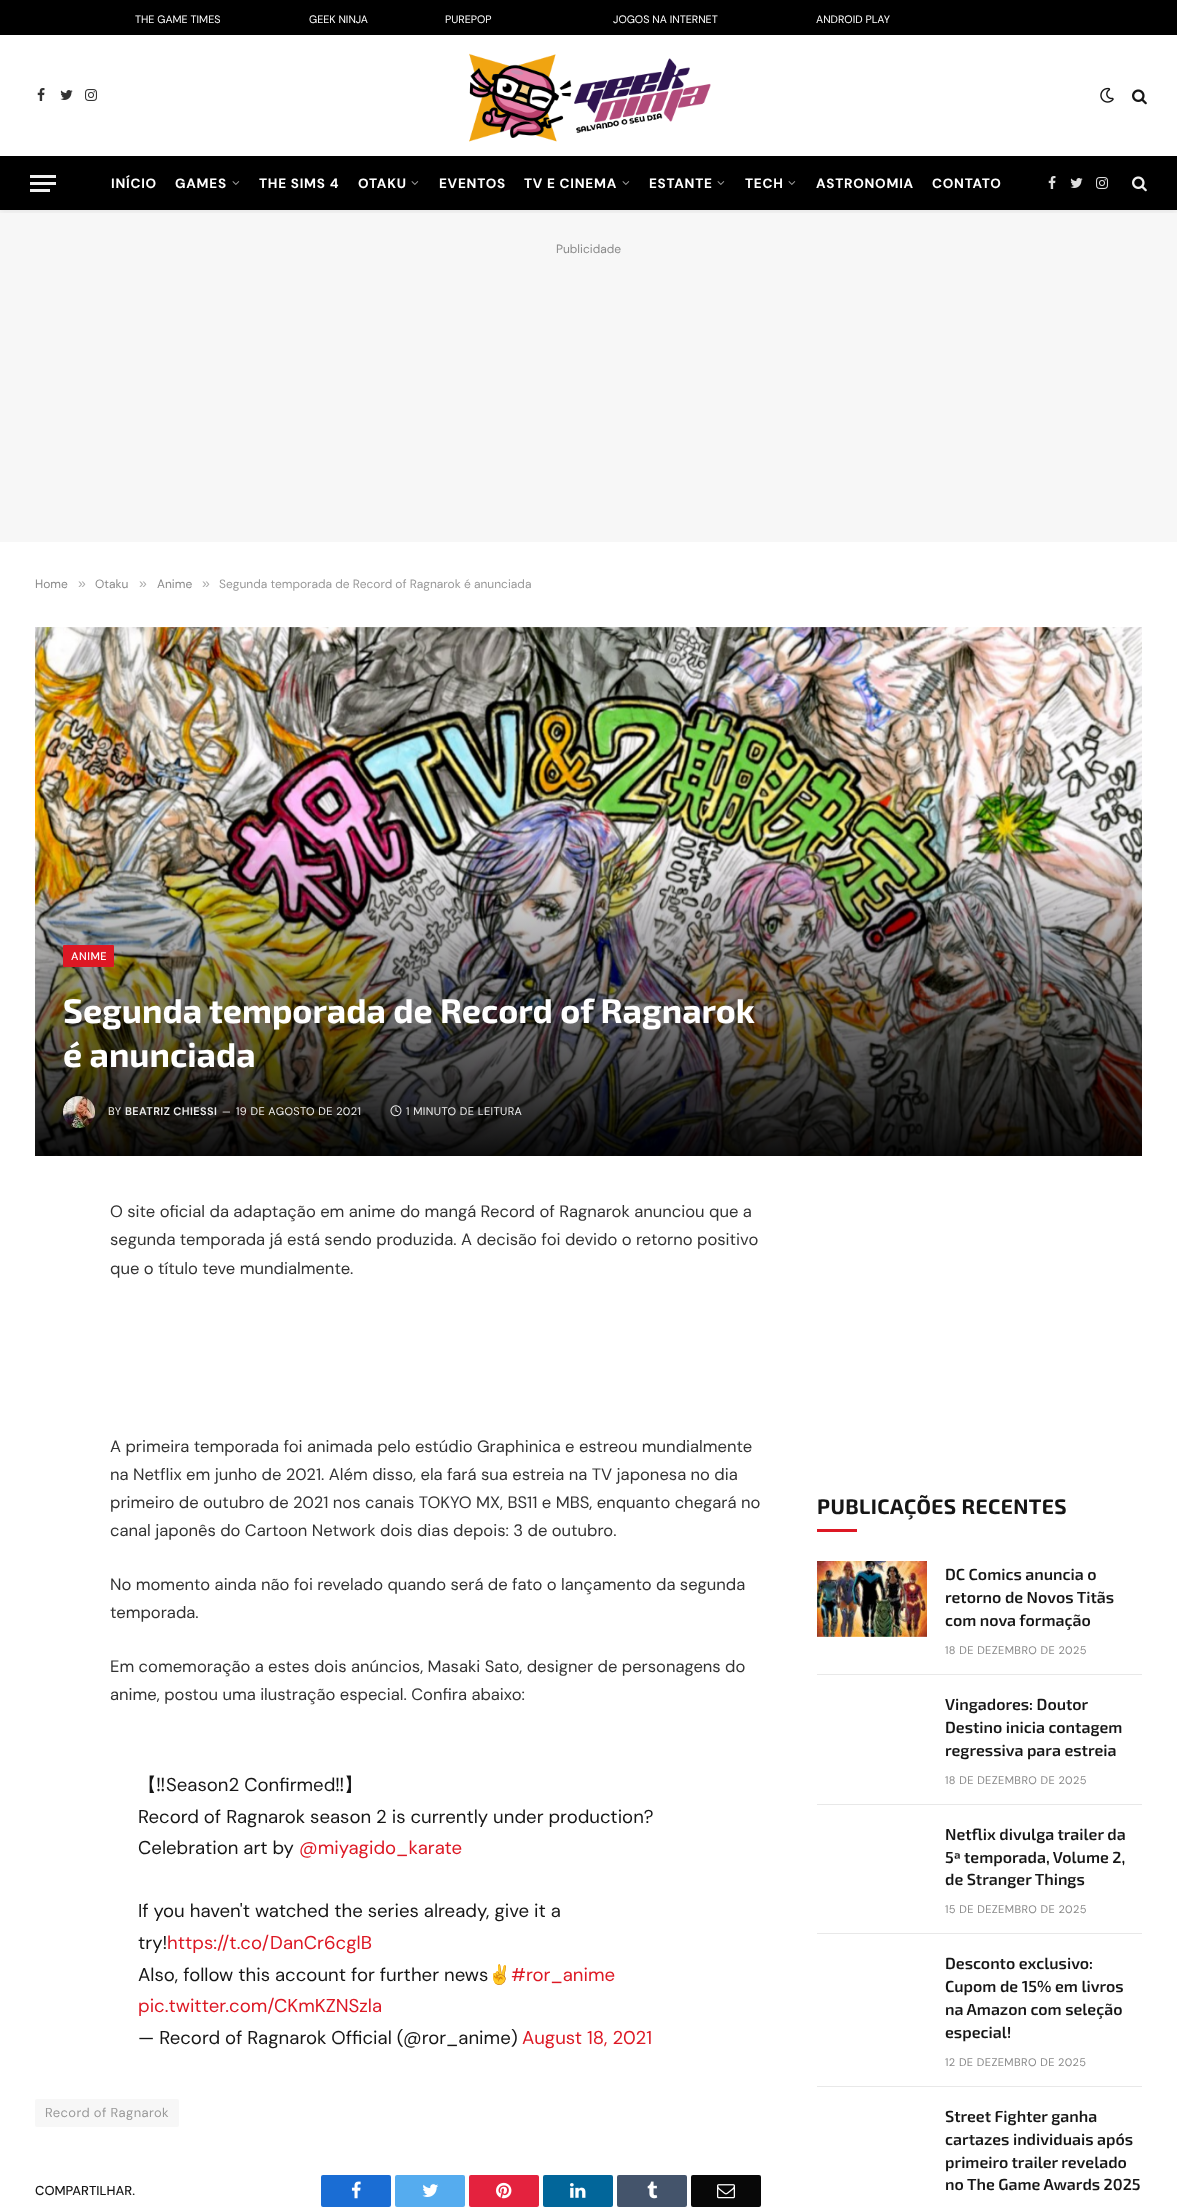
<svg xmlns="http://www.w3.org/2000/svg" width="1177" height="2209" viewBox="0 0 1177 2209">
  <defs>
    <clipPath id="clip1"><path d="M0 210h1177v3H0z"/></clipPath>
    <linearGradient id="g1" gradientUnits="userSpaceOnUse" x1="589" y1="834" x2="589" y2="1156"><stop offset="0" stop-color="#000" stop-opacity="0"/><stop offset="1" stop-color="#000" stop-opacity="0.95"/></linearGradient>
  </defs>
  <rect width="100%" height="100%" fill="#fff"/>
  <path d="M0 0h1177v35H0z" fill="#000"/>
  <path d="M0 210h1177v332H0z" fill="#f7f7f7"/>
  <g clip-path="url(#clip1)">
    <path d="M0 38h1177v175H0z" fill="#0000000d" filter="blur(2px)"/>
  </g>
  <image x="37" y="88" width="8" height="13" href="img/1.png"/>
  <image x="60" y="90" width="13" height="10" href="img/2.png"/>
  <image x="85" y="89" width="12" height="12" href="img/3.png"/>
  <image x="469" y="53" width="242" height="89" href="img/4.png"/>
  <image x="1100" y="87" width="14" height="16" href="img/5.png"/>
  <image x="1132" y="89" width="15" height="16" href="img/6.png"/>
  <path d="M0 156h1177v54H0z" fill="#000"/>
  <path d="M30 189h20v3H30z" fill="#f0f0f0"/>
  <path d="M30 175h26v3H30z" fill="#f0f0f0"/>
  <path d="M30 182h26v3H30z" fill="#f0f0f0"/>
  <image x="232" y="181" width="8" height="4" href="img/7.png"/>
  <image x="411" y="181" width="8" height="4" href="img/7.png"/>
  <image x="622" y="181" width="8" height="4" href="img/7.png"/>
  <image x="717" y="181" width="8" height="4" href="img/7.png"/>
  <image x="788" y="181" width="8" height="4" href="img/7.png"/>
  <image x="1048" y="176" width="8" height="13" href="img/8.png"/>
  <image x="1070" y="178" width="13" height="10" href="img/9.png"/>
  <image x="1096" y="177" width="12" height="12" href="img/10.png"/>
  <image x="1132" y="176" width="15" height="16" href="img/11.png"/>
  <image x="35" y="627" width="1107" height="529" href="img/12.png"/>
  <path d="M35 841h1107v315H35z" fill="url(#g1)"/>
  <rect x="63" y="945" width="51" height="22" rx="1" fill="#dd1824"/>
  <rect x="63" y="1096" width="32" height="32" rx="16" fill="#00000033" filter="blur(0.5px)"/>
  <image x="63" y="1096" width="32" height="32" href="img/13.png"/>
  <image x="390" y="1105" width="12" height="12" href="img/14.png"/>
  <rect x="35" y="2099" width="144" height="28" rx="2" fill="#f7f7f7"/>
  <rect x="321" y="2175" width="70" height="32" rx="2" fill="#1a6dd4"/>
  <image x="351" y="2181" width="10" height="18" href="img/15.png"/>
  <rect x="395" y="2175" width="70" height="32" rx="2" fill="#55acef"/>
  <image x="422" y="2184" width="17" height="13" href="img/16.png"/>
  <rect x="469" y="2175" width="70" height="32" rx="2" fill="#e4223e"/>
  <image x="496" y="2182" width="16" height="17" href="img/17.png"/>
  <rect x="543" y="2175" width="70" height="32" rx="2" fill="#02669a"/>
  <image x="570" y="2183" width="16" height="15" href="img/18.png"/>
  <rect x="617" y="2175" width="70" height="32" rx="2" fill="#44546b"/>
  <image x="647" y="2181" width="11" height="18" href="img/19.png"/>
  <rect x="691" y="2175" width="70" height="32" rx="2" fill="#080808"/>
  <image x="717" y="2184" width="18" height="15" href="img/20.png"/>
  <path d="M817 1529h40v3H817z" fill="#dd1824"/>
  <image x="817" y="1561" width="110" height="76" href="img/21.png"/>
  <path d="M817 1674h325v1H817z" fill="#e8e8e8"/>
  <path d="M817 1804h325v1H817z" fill="#e8e8e8"/>
  <path d="M817 1933h325v1H817z" fill="#e8e8e8"/>
  <path d="M817 2086h325v1H817z" fill="#e8e8e8"/>
  <g font-family="DM Sans" font-size="10.75" fill="#fff">
    <text x="135" y="23">THE GAME TIMES</text>
    <text x="309" y="23">GEEK NINJA</text>
    <text x="445" y="23">PUREPOP</text>
    <text x="613" y="23">JOGOS NA INTERNET</text>
    <text x="816" y="23">ANDROID PLAY</text>
  </g>
  <g font-family="DM Sans" font-size="13.5" font-weight="bold" letter-spacing="0.75" fill="#fff">
    <text x="111" y="188">INÍCIO</text>
    <text x="175" y="188">GAMES</text>
    <text x="259" y="188">THE SIMS 4</text>
    <text x="358" y="188">OTAKU</text>
    <text x="439" y="188">EVENTOS</text>
    <text x="524" y="188">TV E CINEMA</text>
    <text x="649" y="188">ESTANTE</text>
    <text x="745" y="188">TECH</text>
    <text x="816" y="188">ASTRONOMIA</text>
    <text x="932" y="188">CONTATO</text>
  </g>
  <g font-family="DM Sans" font-size="12" fill="#8a8a8a">
    <text x="556" y="253">Publicidade</text>
    <text x="35" y="588">Home</text>
  </g>
  <text x="78" y="588" font-family="Liberation Sans" font-size="14" fill="#adadad">»</text>
  <text x="95" y="588" font-family="DM Sans" font-size="12" fill="#8a8a8a">Otaku</text>
  <text x="139" y="588" font-family="Liberation Sans" font-size="14" fill="#adadad">»</text>
  <text x="157" y="588" font-family="DM Sans" font-size="12" fill="#8a8a8a">Anime</text>
  <text x="202" y="588" font-family="Liberation Sans" font-size="14" fill="#adadad">»</text>
  <text x="219" y="588" font-family="DM Sans" font-size="12" fill="#999">Segunda temporada de Record of Ragnarok é anunciada</text>
  <text x="71" y="960" font-family="DM Sans" font-size="11" font-weight="500" letter-spacing="0.5" fill="#fff">ANIME</text>
  <g font-family="'Exo 2'" font-size="34" font-weight="bold" fill="#fff">
    <text x="63" y="1023">Segunda temporada de Record of Ragnarok</text>
    <text x="63" y="1067">é anunciada</text>
  </g>
  <text x="108" y="1115" font-family="DM Sans" font-size="11" letter-spacing="0.4" fill="#eee">BY</text>
  <text x="125" y="1115" font-family="DM Sans" font-size="11" font-weight="600" letter-spacing="0.4" fill="#eee">BEATRIZ CHIESSI</text>
  <text x="222" y="1115" font-family="DM Sans" font-size="10" fill="#eee">—</text>
  <g font-family="DM Sans" font-size="11" letter-spacing="0.4" fill="#eee">
    <text x="236" y="1115">19 DE AGOSTO DE 2021</text>
    <text x="406" y="1115">1 MINUTO DE LEITURA</text>
  </g>
  <g font-family="DM Sans" font-size="16.6" fill="#333">
    <text x="110" y="1217">O site oficial da adaptação em anime do mangá Record of Ragnarok anunciou que a</text>
    <text x="110" y="1245">segunda temporada já está sendo produzida. A decisão foi devido o retorno positivo</text>
    <text x="110" y="1274">que o título teve mundialmente.</text>
    <text x="110" y="1452">A primeira temporada foi animada pelo estúdio Graphinica e estreou mundialmente</text>
    <text x="110" y="1480">na Netflix em junho de 2021. Além disso, ela fará sua estreia na TV japonesa no dia</text>
    <text x="110" y="1508">primeiro de outubro de 2021 nos canais TOKYO MX, BS11 e MBS, enquanto chegará no</text>
    <text x="110" y="1536">canal japonês do Cartoon Network dois dias depois: 3 de outubro.</text>
    <text x="110" y="1590">No momento ainda não foi revelado quando será de fato o lançamento da segunda</text>
    <text x="110" y="1618">temporada.</text>
    <text x="110" y="1672">Em comemoração a estes dois anúncios, Masaki Sato, designer de personagens do</text>
    <text x="110" y="1700">anime, postou uma ilustração especial. Confira abaixo:</text>
  </g>
  <text x="138" y="1791" font-family="WenQuanYi Zen Hei" font-size="18.6" font-weight="500" fill="#161616">【</text>
  <text x="156" y="1791" font-family="Noto Sans" font-size="18.6" fill="#161616">‼</text>
  <text x="166" y="1791" font-family="DM Sans" font-size="18.6" fill="#161616">Season2 Confirmed</text>
  <text x="335" y="1791" font-family="Noto Sans" font-size="18.6" fill="#161616">‼</text>
  <text x="344" y="1791" font-family="WenQuanYi Zen Hei" font-size="18.6" font-weight="500" fill="#161616">】</text>
  <g font-family="DM Sans" font-size="18.6" fill="#161616">
    <text x="138" y="1823">Record of Ragnarok season 2 is currently under production?</text>
    <text x="138" y="1854">Celebration art by</text>
  </g>
  <text x="299" y="1854" font-family="DM Sans" font-size="18.6" fill="#dd1824">@miyagido_karate</text>
  <g font-family="DM Sans" font-size="18.6" fill="#161616">
    <text x="138" y="1917">If you haven't watched the series already, give it a</text>
    <text x="138" y="1949">try!</text>
  </g>
  <text x="167" y="1949" font-family="DM Sans" font-size="18.6" fill="#dd1824">https://t.co/DanCr6cglB</text>
  <text x="138" y="1981" font-family="DM Sans" font-size="18.6" fill="#161616">Also, follow this account for further news</text>
  <text x="488" y="1981" font-family="Noto Color Emoji" font-size="18.6" fill="#161616">✌</text>
  <g font-family="DM Sans" font-size="18.6" fill="#dd1824">
    <text x="511" y="1981">#ror_anime</text>
    <text x="138" y="2012">pic.twitter.com/CKmKZNSzla</text>
  </g>
  <text x="138" y="2044" font-family="DM Sans" font-size="18.6" fill="#161616">— Record of Ragnarok Official (@ror_anime)</text>
  <text x="522" y="2044" font-family="DM Sans" font-size="18.6" fill="#dd1824">August 18, 2021</text>
  <text x="45" y="2117" font-family="DM Sans" font-size="13" letter-spacing="0.4" fill="#999">Record of Ragnarok</text>
  <text x="35" y="2195" font-family="DM Sans" font-size="13" font-weight="500" fill="#161616">COMPARTILHAR.</text>
  <text x="817" y="1514" font-family="'Exo 2'" font-size="21" font-weight="bold" letter-spacing="0.4" fill="#161616">PUBLICAÇÕES RECENTES</text>
  <g font-family="'Exo 2'" font-size="16" font-weight="600" fill="#161616">
    <text x="945" y="1580">DC Comics anuncia o</text>
    <text x="945" y="1603">retorno de Novos Titãs</text>
    <text x="945" y="1626">com nova formação</text>
  </g>
  <text x="945" y="1654" font-family="DM Sans" font-size="11" letter-spacing="0.4" fill="#8a8a8a">18 DE DEZEMBRO DE 2025</text>
  <g font-family="'Exo 2'" font-size="16" font-weight="600" fill="#161616">
    <text x="945" y="1710">Vingadores: Doutor</text>
    <text x="945" y="1733">Destino inicia contagem</text>
    <text x="945" y="1756">regressiva para estreia</text>
  </g>
  <text x="945" y="1784" font-family="DM Sans" font-size="11" letter-spacing="0.4" fill="#8a8a8a">18 DE DEZEMBRO DE 2025</text>
  <g font-family="'Exo 2'" font-size="16" font-weight="600" fill="#161616">
    <text x="945" y="1840">Netflix divulga trailer da</text>
    <text x="945" y="1863">5ª temporada, Volume 2,</text>
    <text x="945" y="1885">de Stranger Things</text>
  </g>
  <text x="945" y="1913" font-family="DM Sans" font-size="11" letter-spacing="0.4" fill="#8a8a8a">15 DE DEZEMBRO DE 2025</text>
  <g font-family="'Exo 2'" font-size="16" font-weight="600" fill="#161616">
    <text x="945" y="1969">Desconto exclusivo:</text>
    <text x="945" y="1992">Cupom de 15% em livros</text>
    <text x="945" y="2015">na Amazon com seleção</text>
    <text x="945" y="2038">especial!</text>
  </g>
  <text x="945" y="2066" font-family="DM Sans" font-size="11" letter-spacing="0.4" fill="#8a8a8a">12 DE DEZEMBRO DE 2025</text>
  <g font-family="'Exo 2'" font-size="16" font-weight="600" fill="#161616">
    <text x="945" y="2122">Street Fighter ganha</text>
    <text x="945" y="2145">cartazes individuais após</text>
    <text x="945" y="2168">primeiro trailer revelado</text>
    <text x="945" y="2190">no The Game Awards 2025</text>
  </g>
</svg>
